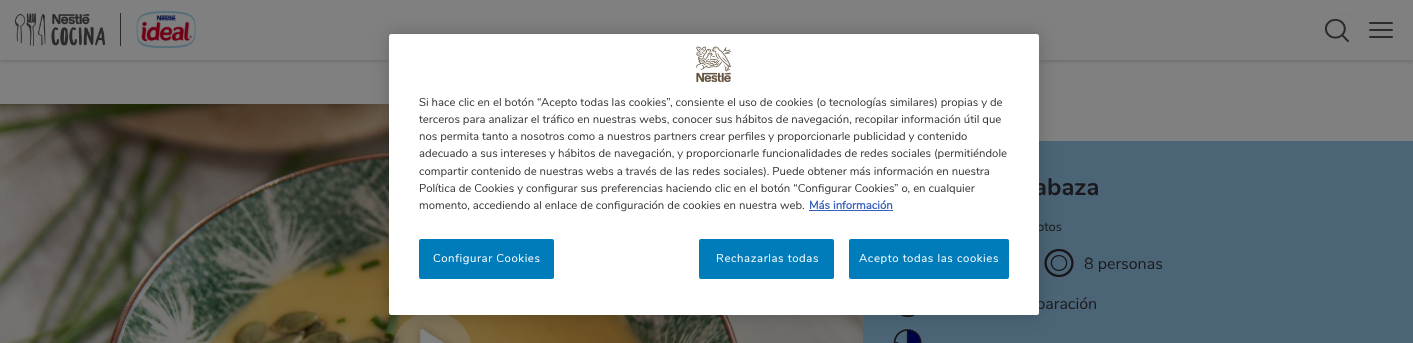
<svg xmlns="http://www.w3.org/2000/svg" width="1413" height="343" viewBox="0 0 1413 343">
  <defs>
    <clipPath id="clip1"><path d="M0 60h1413v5H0z"/></clipPath>
  </defs>
  <rect width="100%" height="100%" fill="#808080"/>
  <image x="0" y="104" width="863" height="239" href="img/5.png"/>
  <image x="392" y="315" width="80" height="28" href="img/6.png"/>
  <path d="M863 141h550v202H863z" fill="#4c6576"/>
  <image x="1044" y="249" width="30" height="28" href="img/7.png"/>
  <image x="900" y="315" width="15" height="2" href="img/8.png"/>
  <image x="893" y="329" width="29" height="14" href="img/9.png"/>
  <rect x="389" y="34" width="650" height="281" rx="2.5" fill="#00000033" filter="blur(9px)"/>
  <g clip-path="url(#clip1)">
    <path d="M0 1h1413v60H0z" fill="#676767" filter="blur(2px)"/>
  </g>
  <image x="15" y="13" width="90" height="33" href="img/2.png"/>
  <path d="M120 13h1v33H120z" fill="#2b2a2c"/>
  <image x="136" y="11" width="60" height="37" href="img/3.png"/>
  <image x="1325" y="13" width="24" height="29" href="img/4.png"/>
  <rect x="1369" y="22" width="24" height="2" rx="1" fill="#2b2a2c"/>
  <rect x="1369" y="29" width="24" height="2" rx="1" fill="#2b2a2c"/>
  <rect x="1369" y="36" width="24" height="2" rx="1" fill="#2b2a2c"/>
  <text x="1034" y="195" font-family="Nunito" font-size="24" font-weight="bold" fill="#1a191d">abaza</text>
  <text x="1037" y="231" font-family="Nunito" font-size="13" fill="#1a191d">otos</text>
  <g font-family="Nunito" font-size="16" fill="#1a191d">
    <text x="1084" y="269">8 personas</text>
    <text x="1036" y="309">paración</text>
  </g>
  <rect x="389" y="34" width="650" height="281" rx="2.5" fill="#fff"/>
  <rect x="849" y="239" width="160" height="40" rx="2" fill="#007cba"/>
  <text x="859" y="262" font-family="Nunito" font-size="11.38" letter-spacing="0.6" fill="#fff">Acepto todas las cookies</text>
  <rect x="699" y="239" width="135" height="40" rx="2" fill="#007cba"/>
  <text x="716" y="262" font-family="Nunito" font-size="11.38" letter-spacing="0.6" fill="#fff">Rechazarlas todas</text>
  <rect x="419" y="239" width="135" height="40" rx="2" fill="#007cba"/>
  <text x="433" y="262" font-family="Nunito" font-size="11.38" letter-spacing="0.6" fill="#fff">Configurar Cookies</text>
  <image x="696" y="46" width="35" height="36" href="img/1.png"/>
  <text x="809" y="209" font-family="'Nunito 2'" font-size="11.38" font-weight="bold" fill="#3860be">Más información</text>
  <path d="M809 210h84v1H809z" fill="#3860be"/>
  <g font-family="Nunito" font-size="11.38" fill="#333">
    <text x="419" y="209">momento, accediendo al enlace de configuración de cookies en nuestra web.</text>
    <text x="419" y="192">Política de Cookies y configurar sus preferencias haciendo clic en el botón “Configurar Cookies” o, en cualquier</text>
    <text x="419" y="175">compartir contenido de nuestras webs a través de las redes sociales). Puede obtener más información en nuestra</text>
    <text x="419" y="157">adecuado a sus intereses y hábitos de navegación, y proporcionarle funcionalidades de redes sociales (permitiéndole</text>
    <text x="419" y="140">nos permita tanto a nosotros como a nuestros partners crear perfiles y proporcionarle publicidad y contenido</text>
    <text x="419" y="123">terceros para analizar el tráfico en nuestras webs, conocer sus hábitos de navegación, recopilar información útil que</text>
    <text x="419" y="106">Si hace clic en el botón “Acepto todas las cookies”, consiente el uso de cookies (o tecnologías similares) propias y de</text>
  </g>
</svg>
